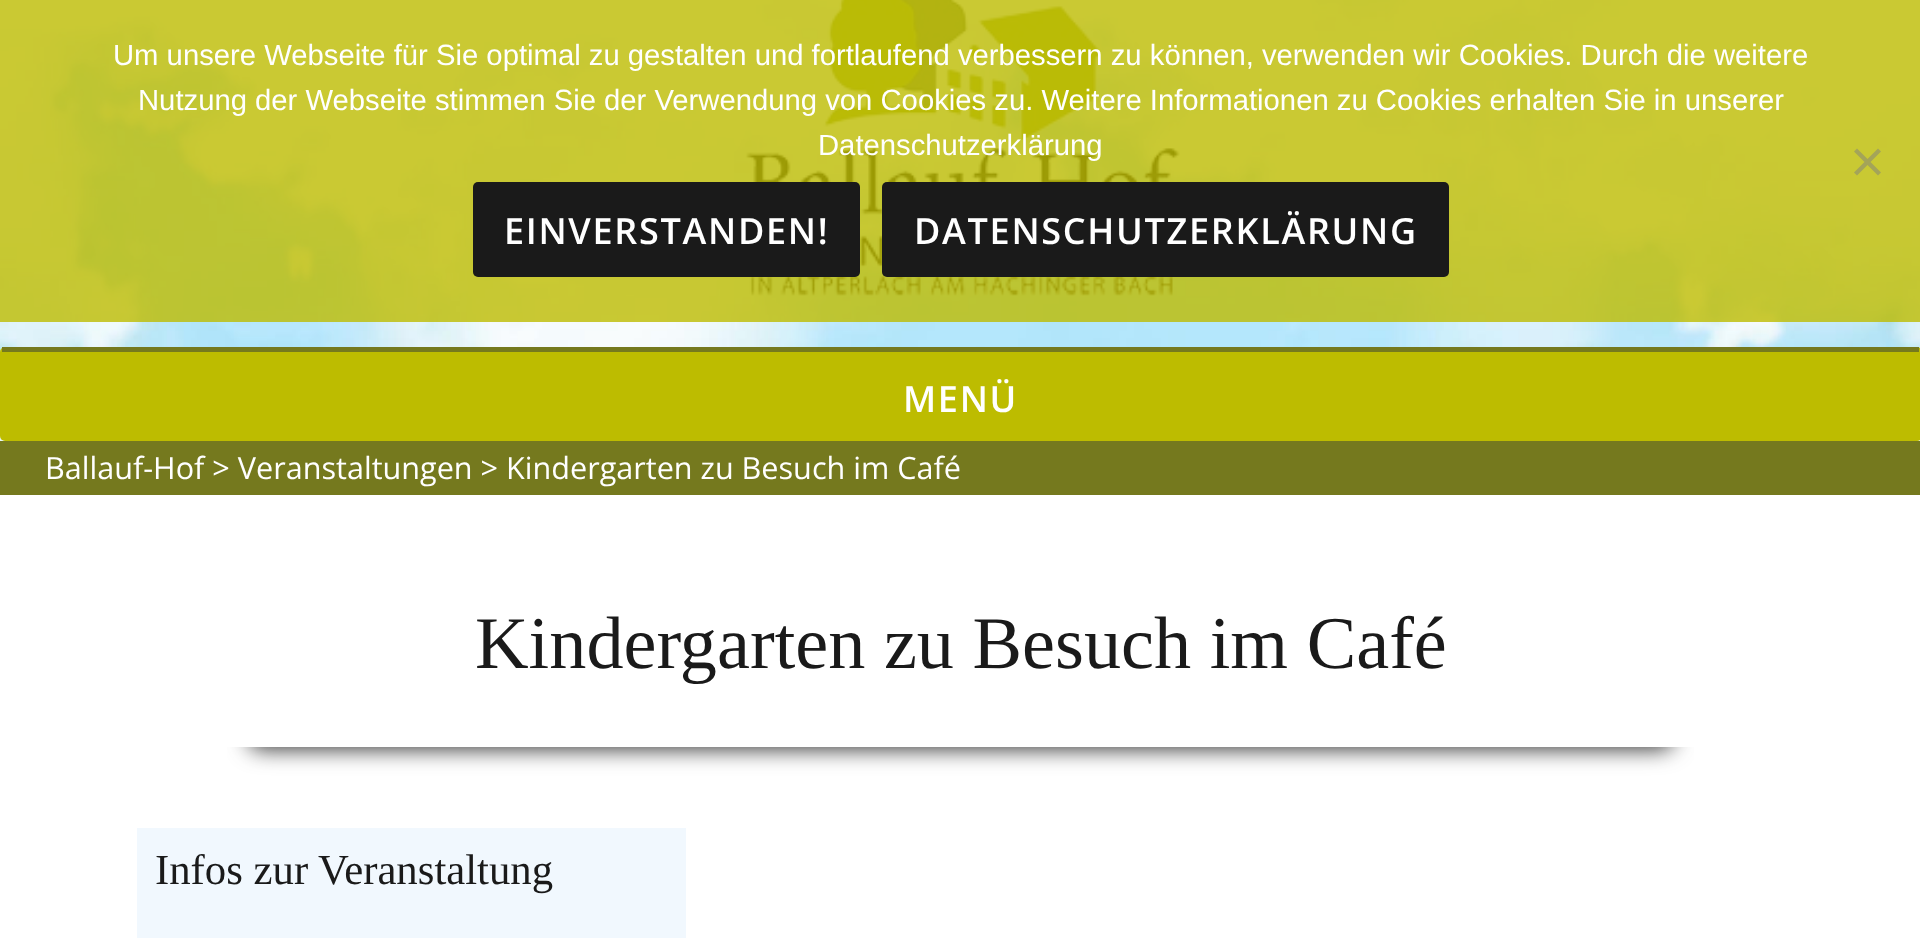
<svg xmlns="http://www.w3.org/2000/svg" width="1920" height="938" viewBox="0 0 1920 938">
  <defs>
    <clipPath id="clip1"><path d="M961 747h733v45H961z"/></clipPath>
    <clipPath id="clip2"><path d="M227 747h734v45H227z"/></clipPath>
  </defs>
  <rect width="100%" height="100%" fill="#fff"/>
  <image x="0" y="0" width="1920" height="441" href="img/1.png"/>
  <image x="745" y="0" width="435" height="296" href="img/2.png"/>
  <path d="M0 0h1920v322H0z" fill="#bdbc00cc"/>
  <path d="M1878 148.5L1881 151.5L1857 175.5L1854 172.5Z" fill="#a4a459"/>
  <path d="M1854 151.5L1857 148.5L1881 172.5L1878 175.5Z" fill="#a4a459"/>
  <rect x="473" y="182" width="387" height="95" rx="5" fill="#1a1a1a"/>
  <rect x="882" y="182" width="567" height="95" rx="5" fill="#1a1a1a"/>
  <rect y="347" width="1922" height="94" rx="5" fill="#bdbc00"/>
  <path d="M2 347h1917v5H2z" fill="#75791e"/>
  <path d="M0 441h1920v54H0z" fill="#75791e"/>
  <g clip-path="url(#clip1)">
    <rect x="203" y="722" width="1471" height="27" rx="13.5" fill="#333" filter="blur(11px)"/>
  </g>
  <g clip-path="url(#clip2)">
    <rect x="248" y="722" width="1471" height="27" rx="13.5" fill="#333" filter="blur(11px)"/>
  </g>
  <path d="M137 828h549v110H137z" fill="#f1f8fe"/>
  <g font-family="Liberation Sans" font-size="29.25" fill="#fff">
    <text x="113" y="65">Um unsere Webseite für Sie optimal zu gestalten und fortlaufend verbessern zu können, verwenden wir Cookies. Durch die weitere</text>
    <text x="138" y="110">Nutzung der Webseite stimmen Sie der Verwendung von Cookies zu. Weitere Informationen zu Cookies erhalten Sie in unserer</text>
    <text x="818" y="155">Datenschutzerklärung</text>
  </g>
  <g font-family="Open Sans" font-size="36" font-weight="600" letter-spacing="1.7" fill="#fff">
    <text x="504" y="244">EINVERSTANDEN!</text>
    <text x="914" y="244">DATENSCHUTZERKLÄRUNG</text>
    <text x="903" y="412">MENÜ</text>
  </g>
  <text x="45" y="479" font-family="Open Sans" font-size="30.6" fill="#fff">Ballauf-Hof &gt; Veranstaltungen &gt; Kindergarten zu Besuch im Café</text>
  <text x="475" y="668" font-family="Liberation Serif" font-size="74.25" fill="#1a1a1a">Kindergarten zu Besuch im Café</text>
  <text x="155" y="884" font-family="Liberation Serif" font-size="42.75" fill="#1a1a1a">Infos zur Veranstaltung</text>
</svg>
